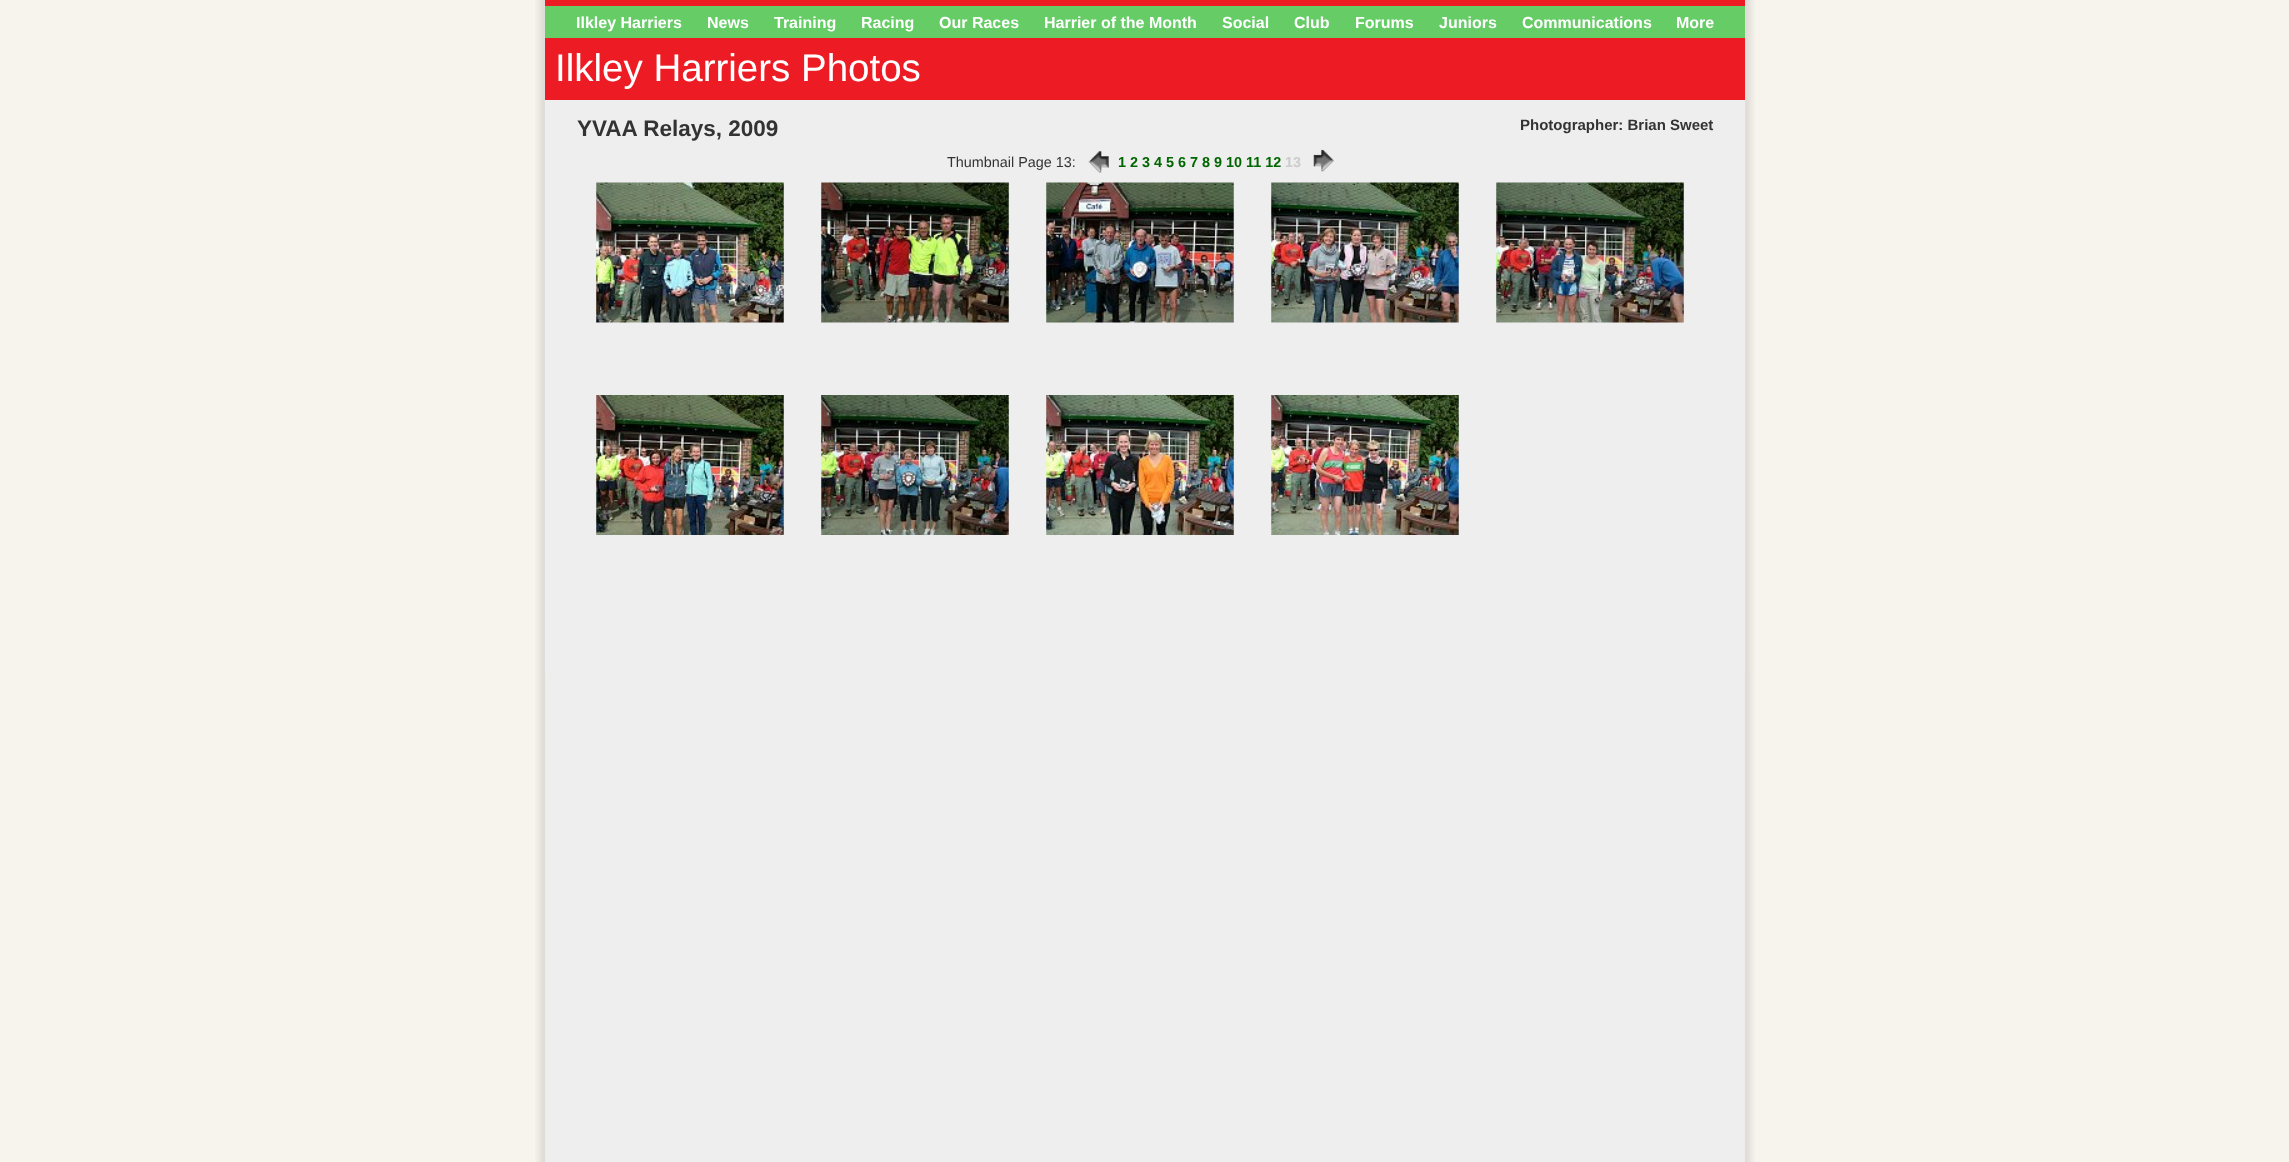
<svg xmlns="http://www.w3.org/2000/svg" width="2289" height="1162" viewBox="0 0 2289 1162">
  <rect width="100%" height="100%" fill="#f7f4ee"/>
  <image x="535" y="0" width="1220" height="1162" href="img/1.png"/>
  <path d="M545 100h1200v576H545z" fill="#eee"/>
  <path d="M545 38h1200v62H545z" fill="#ed1b24"/>
  <path d="M545 6h1200v32H545z" fill="#6c6"/>
  <path d="M545 0h1200v6H545z" fill="#ed1b24"/>
  <image x="1088" y="151" width="21" height="22" href="img/2.png"/>
  <image x="1313" y="149" width="21" height="23" href="img/3.png"/>
  <image x="596" y="182" width="188" height="141" href="img/4.png"/>
  <image x="821" y="182" width="188" height="141" href="img/5.png"/>
  <image x="1046" y="182" width="188" height="141" href="img/6.png"/>
  <image x="1271" y="182" width="188" height="141" href="img/7.png"/>
  <image x="1496" y="182" width="188" height="141" href="img/8.png"/>
  <image x="596" y="395" width="188" height="140" href="img/9.png"/>
  <image x="821" y="395" width="188" height="140" href="img/10.png"/>
  <image x="1046" y="395" width="188" height="140" href="img/11.png"/>
  <image x="1271" y="395" width="188" height="140" href="img/12.png"/>
  <g font-family="Liberation Sans" font-size="16" font-weight="bold" fill="#fff">
    <text x="576" y="28">Ilkley Harriers</text>
    <text x="707" y="28">News</text>
    <text x="774" y="28">Training</text>
    <text x="861" y="28">Racing</text>
    <text x="939" y="28">Our Races</text>
    <text x="1044" y="28">Harrier of the Month</text>
    <text x="1222" y="28">Social</text>
    <text x="1294" y="28">Club</text>
    <text x="1355" y="28">Forums</text>
    <text x="1439" y="28">Juniors</text>
    <text x="1522" y="28">Communications</text>
    <text x="1676" y="28">More</text>
  </g>
  <text x="555" y="81" font-family="Liberation Sans" font-size="38.5" fill="#fff">Ilkley Harriers Photos</text>
  <text x="577" y="136" font-family="Liberation Sans" font-size="22.5" font-weight="bold" fill="#333">YVAA Relays, 2009</text>
  <text x="1520" y="130" font-family="Liberation Sans" font-size="15" font-weight="bold" fill="#333">Photographer: Brian Sweet</text>
  <text x="947" y="167" font-family="Liberation Sans" font-size="14.4" fill="#333">Thumbnail Page 13:</text>
  <text x="1118" y="167" font-family="Liberation Sans" font-size="14.4" font-weight="bold" fill="#060">1 2 3 4 5 6 7 8 9 10 11 12</text>
  <text x="1285" y="167" font-family="Liberation Sans" font-size="14.4" font-weight="bold" fill="#ccc">13</text>
</svg>
